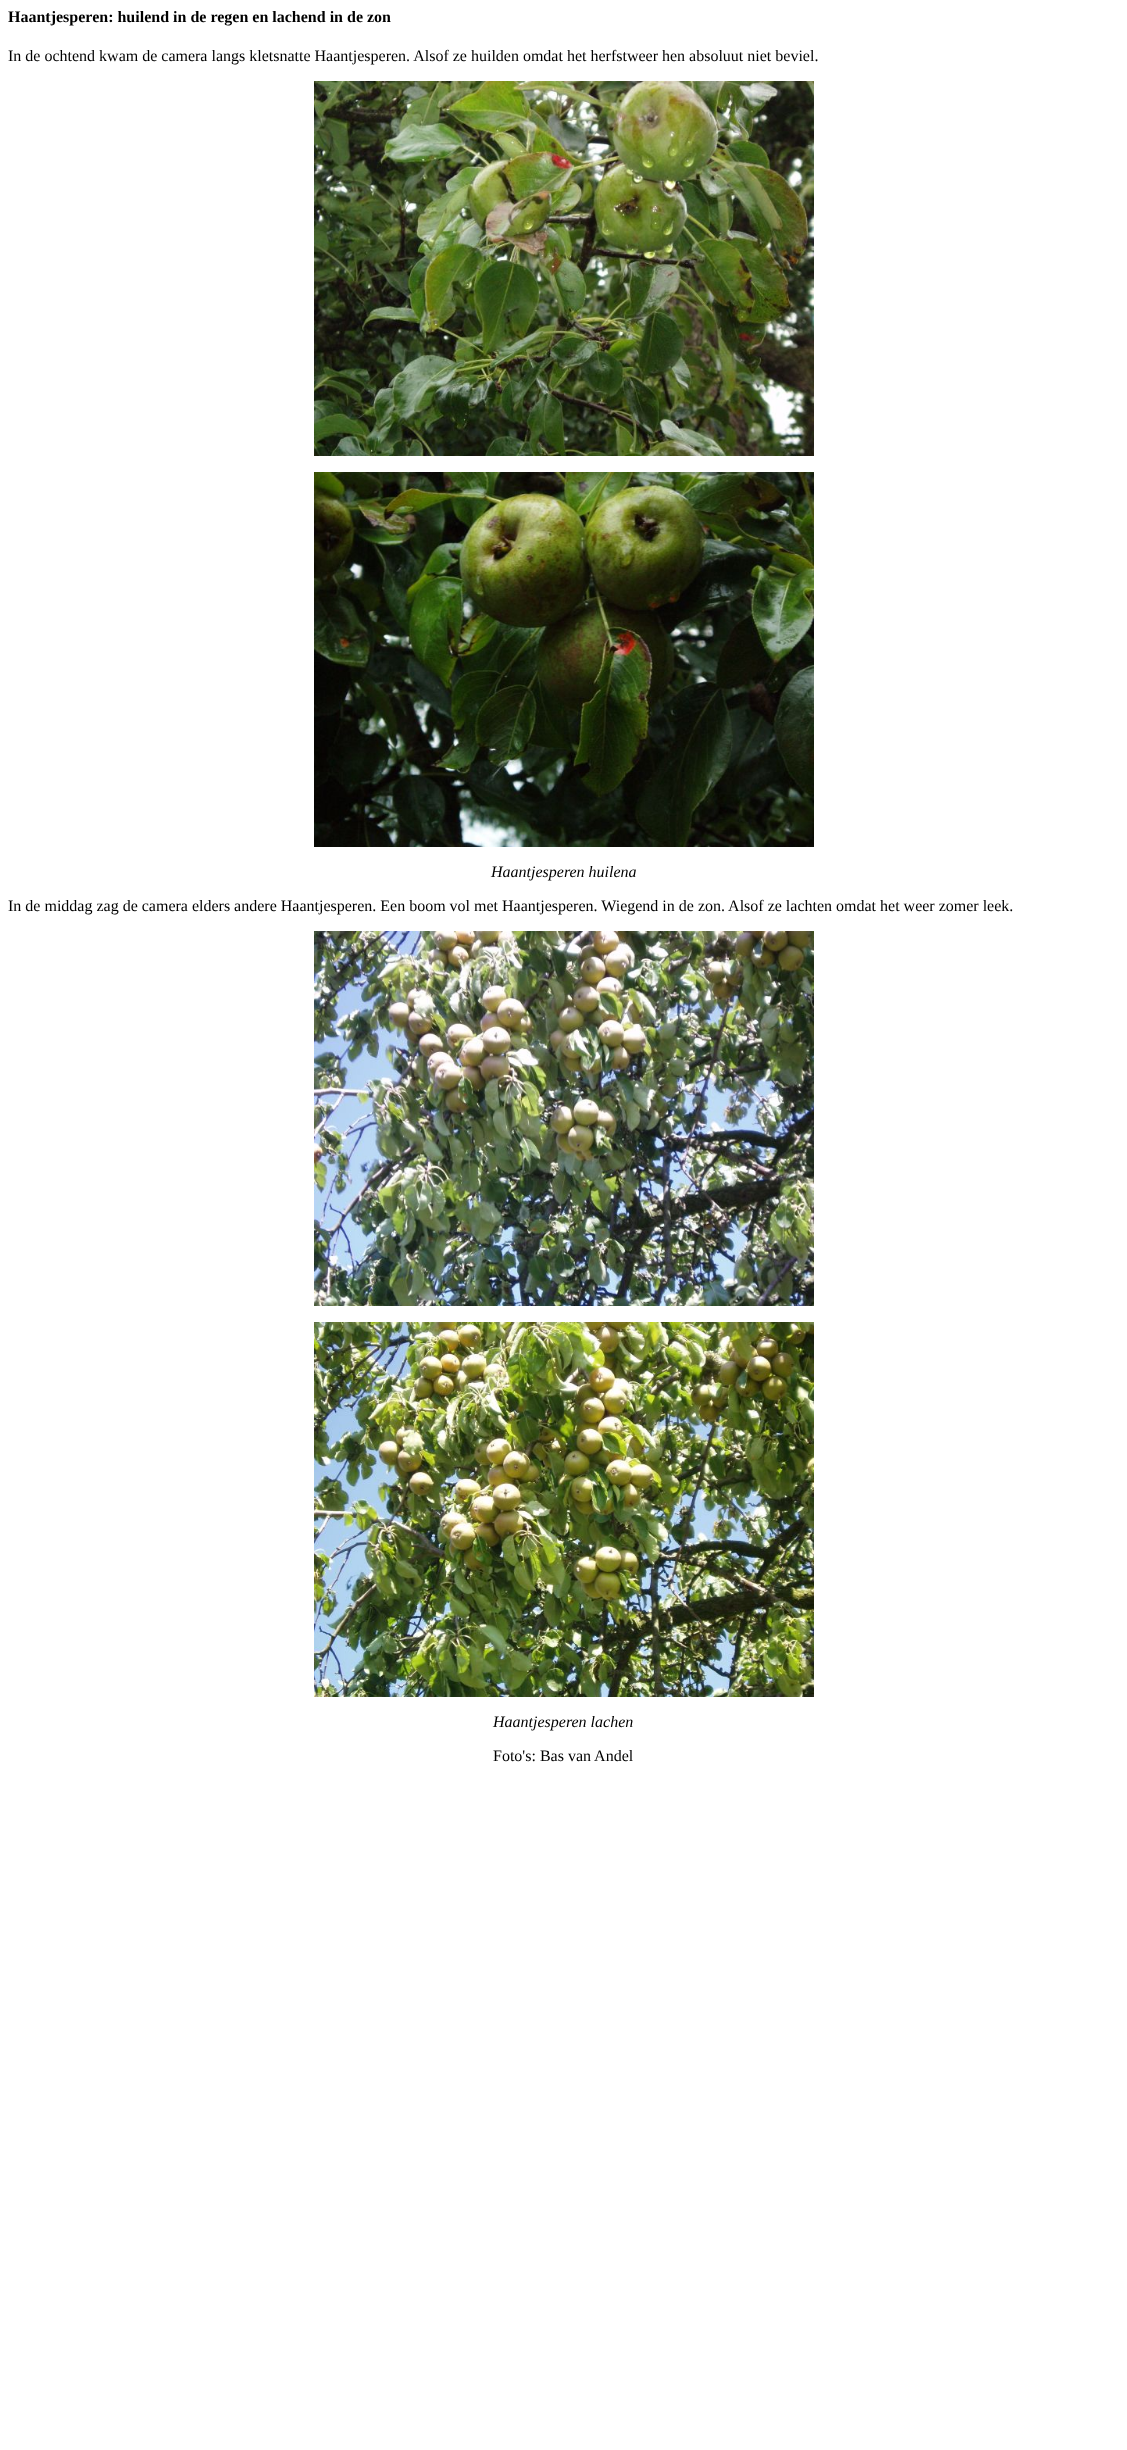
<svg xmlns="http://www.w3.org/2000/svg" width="1127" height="2450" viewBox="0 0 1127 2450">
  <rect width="100%" height="100%" fill="#fff"/>
  <image x="314" y="81" width="500" height="375" href="img/1.png"/>
  <image x="314" y="472" width="500" height="375" href="img/2.png"/>
  <image x="314" y="931" width="500" height="375" href="img/3.png"/>
  <image x="314" y="1322" width="500" height="375" href="img/4.png"/>
  <text x="8" y="22" font-family="Liberation Serif" font-size="16" font-weight="bold" fill="#000">Haantjesperen: huilend in de regen en lachend in de zon</text>
  <text x="8" y="61" font-family="Liberation Serif" font-size="16" fill="#000">In de ochtend kwam de camera langs kletsnatte Haantjesperen. Alsof ze huilden omdat het herfstweer hen absoluut niet beviel.</text>
  <text x="491" y="877" font-family="Liberation Serif" font-size="16" font-style="italic" fill="#000">Haantjesperen huilena</text>
  <text x="8" y="911" font-family="Liberation Serif" font-size="16" fill="#000">In de middag zag de camera elders andere Haantjesperen. Een boom vol met Haantjesperen. Wiegend in de zon. Alsof ze lachten omdat het weer zomer leek.</text>
  <text x="493" y="1727" font-family="Liberation Serif" font-size="16" font-style="italic" fill="#000">Haantjesperen lachen</text>
  <text x="493" y="1761" font-family="Liberation Serif" font-size="16" fill="#000">Foto's: Bas van Andel</text>
</svg>
